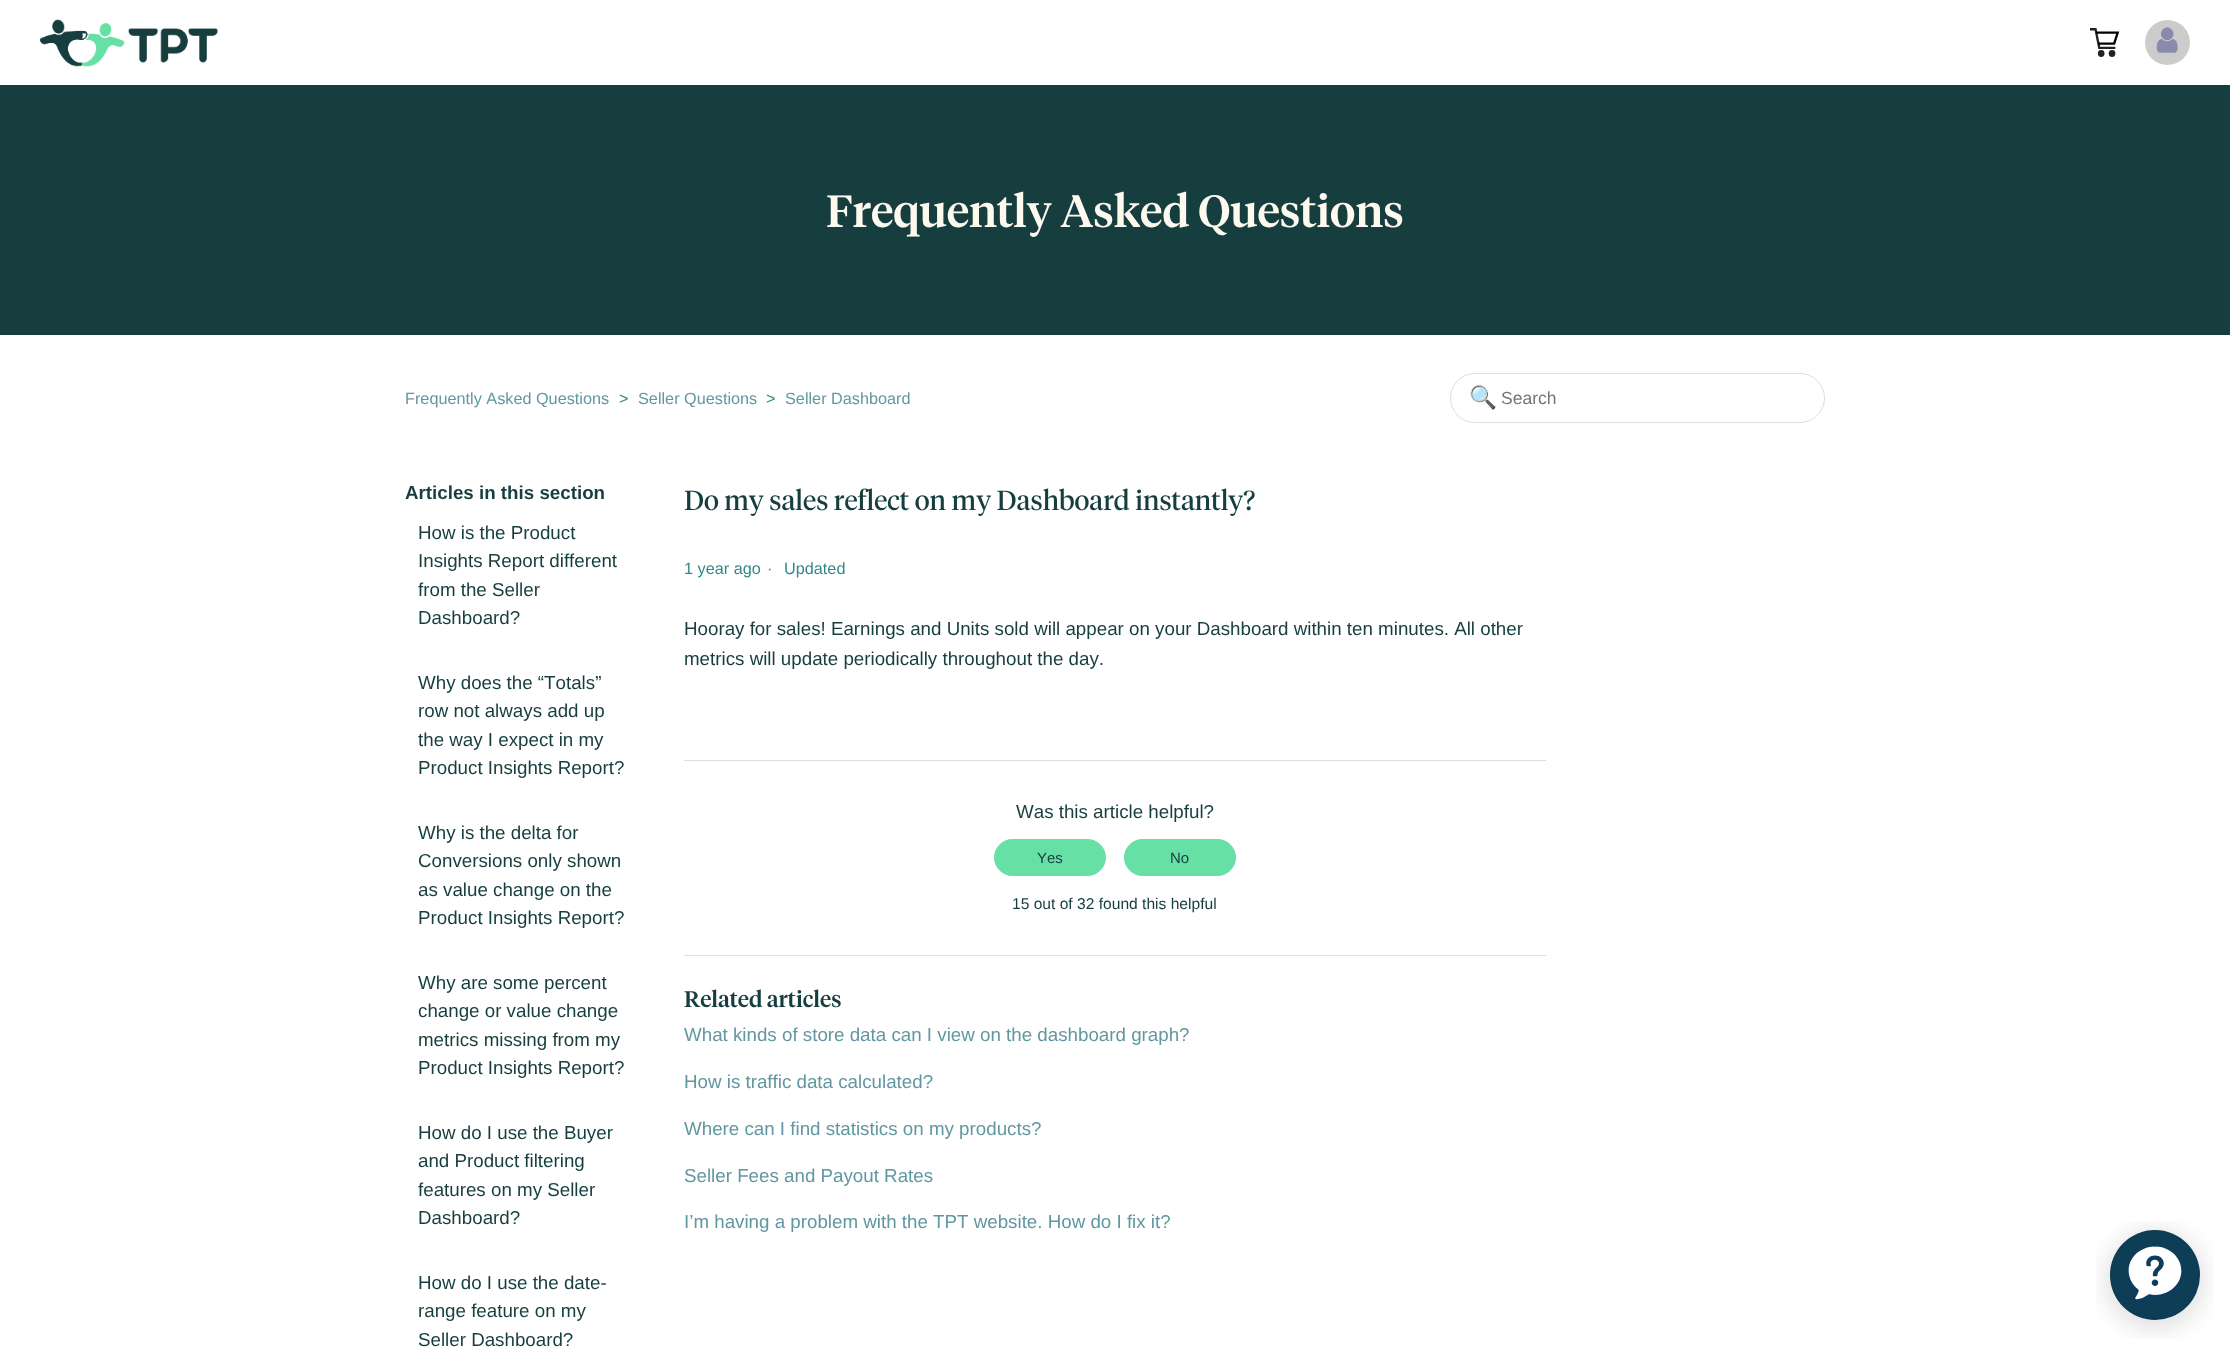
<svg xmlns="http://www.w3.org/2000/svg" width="2230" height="1349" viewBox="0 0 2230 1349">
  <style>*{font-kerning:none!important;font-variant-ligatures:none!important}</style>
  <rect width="100%" height="100%" fill="#fff"/>
  <image x="40" y="19" width="178" height="48" href="img/1.png"/>
  <image x="2090" y="28" width="30" height="29" href="img/2.png"/>
  <circle cx="2167.5" cy="42.5" r="22.5" fill="#ccc"/>
  <image x="2156" y="27" width="22" height="26" href="img/3.png"/>
  <path d="M0 85h2230v250H0z" fill="#173e3e"/>
  <rect x="1450.5" y="373.5" width="374" height="49" rx="24.5" fill="none" stroke="#ddd"/>
  <path d="M684 760h862v1H684z" fill="#ddd"/>
  <rect x="994.5" y="839.5" width="111" height="36" rx="18" fill="#67e0a6" stroke="#67e0a6"/>
  <rect x="1124.5" y="839.5" width="111" height="36" rx="18" fill="#67e0a6" stroke="#67e0a6"/>
  <path d="M684 955h862v1H684z" fill="#ddd"/>
  <image x="2096" y="1221" width="118" height="118" href="img/4.png"/>
  <text x="826" y="227" font-family="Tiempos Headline" font-size="45" font-weight="500" fill="#fef9ef">Frequently Asked Questions</text>
  <text x="405" y="404" font-family="Liberation Sans" font-size="16.25" fill="#6197a1">Frequently Asked Questions</text>
  <text x="619" y="404" font-family="Liberation Sans" font-size="16.25" fill="#388">&gt;</text>
  <text x="638" y="404" font-family="Liberation Sans" font-size="16.25" fill="#6197a1">Seller Questions</text>
  <text x="766" y="404" font-family="Liberation Sans" font-size="16.25" fill="#388">&gt;</text>
  <text x="785" y="404" font-family="Liberation Sans" font-size="16.25" fill="#6197a1">Seller Dashboard</text>
  <text x="1469" y="405" font-family="Noto Color Emoji" font-size="22.5" fill="#757575">🔍</text>
  <text x="1501" y="404" font-family="Liberation Sans" font-size="17.5" fill="#757575">Search</text>
  <text x="405" y="499" font-family="Liberation Sans" font-size="18.75" font-weight="bold" fill="#173e3e">Articles in this section</text>
  <g font-family="Liberation Sans" font-size="18.75" fill="#173e3e">
    <text x="418" y="539">How is the Product</text>
    <text x="418" y="567">Insights Report different</text>
    <text x="418" y="596">from the Seller</text>
    <text x="418" y="624">Dashboard?</text>
    <text x="418" y="689">Why does the “Totals”</text>
    <text x="418" y="717">row not always add up</text>
    <text x="418" y="746">the way I expect in my</text>
    <text x="418" y="774">Product Insights Report?</text>
    <text x="418" y="839">Why is the delta for</text>
    <text x="418" y="867">Conversions only shown</text>
    <text x="418" y="896">as value change on the</text>
    <text x="418" y="924">Product Insights Report?</text>
    <text x="418" y="989">Why are some percent</text>
    <text x="418" y="1017">change or value change</text>
    <text x="418" y="1046">metrics missing from my</text>
    <text x="418" y="1074">Product Insights Report?</text>
    <text x="418" y="1139">How do I use the Buyer</text>
    <text x="418" y="1167">and Product filtering</text>
    <text x="418" y="1196">features on my Seller</text>
    <text x="418" y="1224">Dashboard?</text>
    <text x="418" y="1289">How do I use the date-</text>
    <text x="418" y="1317">range feature on my</text>
    <text x="418" y="1346">Seller Dashboard?</text>
  </g>
  <text x="684" y="510" font-family="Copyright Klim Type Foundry" font-size="27.5" fill="#173e3e">Do my sales reflect on my Dashboard instantly?</text>
  <g font-family="Liberation Sans" font-size="16.25" fill="#388">
    <text x="684" y="574">1 year ago</text>
    <text x="767" y="574">·</text>
    <text x="784" y="574">Updated</text>
  </g>
  <g font-family="Liberation Sans" font-size="18.75" fill="#173e3e">
    <text x="684" y="635">Hooray for sales! Earnings and Units sold will appear on your Dashboard within ten minutes. All other</text>
    <text x="684" y="665">metrics will update periodically throughout the day.</text>
    <text x="1016" y="818">Was this article helpful?</text>
  </g>
  <g font-family="Liberation Sans" font-size="15" fill="#173e3e">
    <text x="1037" y="863">Yes</text>
    <text x="1170" y="863">No</text>
  </g>
  <text x="1012" y="909" font-family="Liberation Sans" font-size="15.6" fill="#173e3e">15 out of 32 found this helpful</text>
  <text x="684" y="1007" font-family="Tiempos Headline" font-size="22.5" font-weight="500" fill="#173e3e">Related articles</text>
  <g font-family="Liberation Sans" font-size="18.75" fill="#6197a1">
    <text x="684" y="1041">What kinds of store data can I view on the dashboard graph?</text>
    <text x="684" y="1088">How is traffic data calculated?</text>
    <text x="684" y="1135">Where can I find statistics on my products?</text>
    <text x="684" y="1182">Seller Fees and Payout Rates</text>
    <text x="684" y="1228">I’m having a problem with the TPT website. How do I fix it?</text>
  </g>
</svg>
